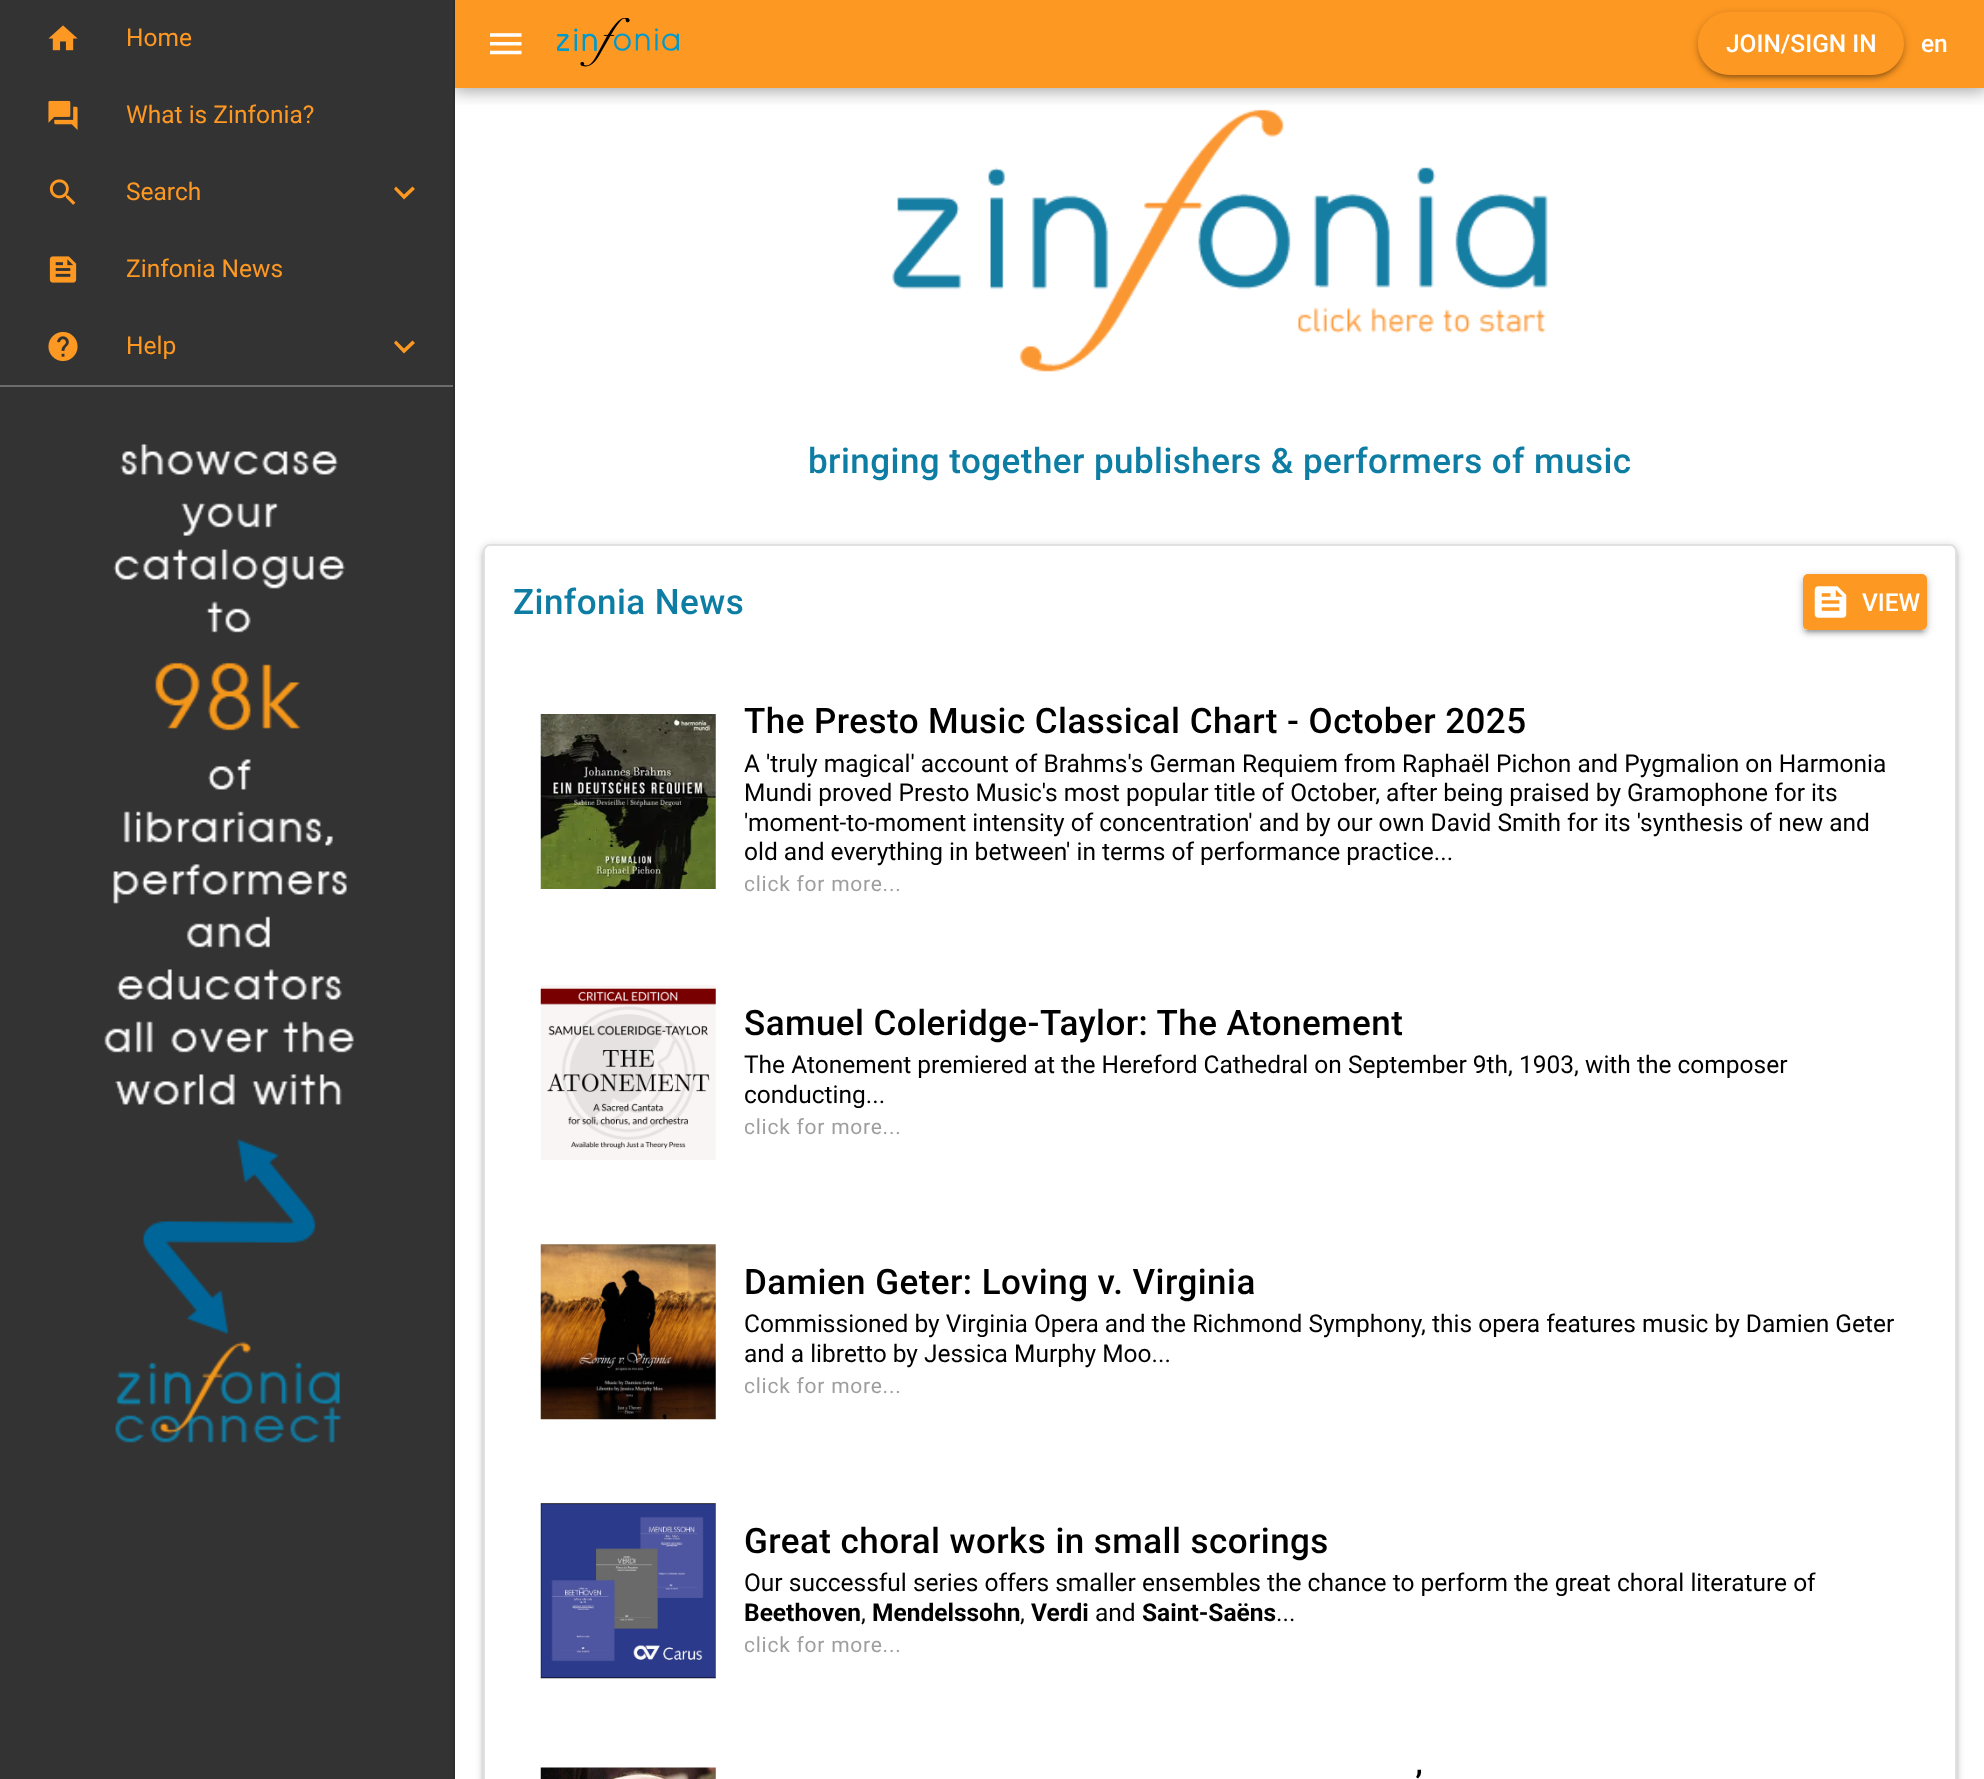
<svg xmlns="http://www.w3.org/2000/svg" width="1984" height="1779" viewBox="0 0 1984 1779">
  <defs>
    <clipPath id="clip1"><path d="M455 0h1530v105H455z"/></clipPath>
    <clipPath id="clip2"><path d="M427 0H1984V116H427ZM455 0H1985V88H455Z" clip-rule="evenodd"/></clipPath>
    <clipPath id="clip3"><path d="M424 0H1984V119H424ZM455 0H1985V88H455Z" clip-rule="evenodd"/></clipPath>
    <clipPath id="clip4"><path d="M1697 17H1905V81H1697ZM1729.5 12H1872.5C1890 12 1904 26 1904 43.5C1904 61 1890 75 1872.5 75H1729.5C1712 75 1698 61 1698 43.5C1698 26 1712 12 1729.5 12Z" clip-rule="evenodd"/></clipPath>
    <clipPath id="clip5"><path d="M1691 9H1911V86H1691ZM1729.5 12H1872.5C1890 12 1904 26 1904 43.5C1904 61 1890 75 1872.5 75H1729.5C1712 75 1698 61 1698 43.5C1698 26 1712 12 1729.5 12Z" clip-rule="evenodd"/></clipPath>
    <clipPath id="clip6"><path d="M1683 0H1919V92H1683ZM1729.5 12H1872.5C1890 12 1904 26 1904 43.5C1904 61 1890 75 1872.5 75H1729.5C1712 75 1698 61 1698 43.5C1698 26 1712 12 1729.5 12Z" clip-rule="evenodd"/></clipPath>
    <clipPath id="clip7"><path d="M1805 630h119v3H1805z"/></clipPath>
    <clipPath id="clip8"><path d="M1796 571H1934V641H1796ZM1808 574H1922C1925 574 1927 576 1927 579V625C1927 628 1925 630 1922 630H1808C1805 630 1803 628 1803 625V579C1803 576 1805 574 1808 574Z" clip-rule="evenodd"/></clipPath>
    <clipPath id="clip9"><path d="M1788 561H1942V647H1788ZM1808 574H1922C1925 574 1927 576 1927 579V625C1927 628 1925 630 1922 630H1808C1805 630 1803 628 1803 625V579C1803 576 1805 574 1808 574Z" clip-rule="evenodd"/></clipPath>
  </defs>
  <rect width="100%" height="100%" fill="#fff"/>
  <path d="M0 0h453v1779H0z" fill="#333"/>
  <path d="M453 0h2v1779H453z" fill="#2d2d2d"/>
  <image x="48" y="25" width="30" height="26" href="img/1.png"/>
  <image x="48" y="100" width="30" height="30" href="img/2.png"/>
  <image x="49" y="179" width="27" height="26" href="img/3.png"/>
  <path d="M396 186.5L404 194.5L412.5 186.5L415 189L404 199.5L394 189Z" fill="#fd9822"/>
  <image x="49" y="256" width="28" height="27" href="img/4.png"/>
  <image x="48" y="331" width="30" height="30" href="img/5.png"/>
  <path d="M396 340.5L404 348.5L412.5 340.5L415 343L404 353.5L394 343Z" fill="#fd9822"/>
  <path d="M0 385h453v2H0z" fill="#6c6c6c"/>
  <image x="104" y="444" width="250" height="999" href="img/6.png"/>
  <path d="M455 0h1529v88H455z" fill="#fd9822"/>
  <image x="490" y="33" width="32" height="22" href="img/7.png"/>
  <image x="557" y="18" width="122" height="49" href="img/8.png"/>
  <image x="892" y="109" width="656" height="263" href="img/9.png"/>
  <g clip-path="url(#clip1)">
    <g clip-path="url(#clip2)">
      <path d="M455 0h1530v88H455z" fill="#0000003d" filter="blur(9px)"/>
    </g>
  </g>
  <g clip-path="url(#clip1)">
    <g clip-path="url(#clip3)">
      <path d="M452 -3h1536v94H452z" fill="#00000033" filter="blur(9px)"/>
    </g>
  </g>
  <g clip-path="url(#clip4)">
    <rect x="1701" y="21" width="200" height="56" rx="28" fill="#0000001f" filter="blur(1px)"/>
  </g>
  <g clip-path="url(#clip5)">
    <rect x="1698" y="16" width="206" height="63" rx="31.5" fill="#00000024" filter="blur(2px)"/>
  </g>
  <g clip-path="url(#clip6)">
    <rect x="1698" y="14" width="206" height="63" rx="31.5" fill="#00000033" filter="blur(4.5px)"/>
  </g>
  <rect x="483" y="548" width="1474" height="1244" rx="7" fill="#00000024" filter="blur(2px)"/>
  <rect x="483" y="546" width="1474" height="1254" rx="7" fill="#00000033" filter="blur(4.5px)"/>
  <rect x="483" y="544" width="1474" height="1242" rx="7" fill="#fff"/>
  <rect x="484" y="545" width="1472" height="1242" rx="6" fill="none" stroke="#0000001f" stroke-width="2"/>
  <rect x="1803" y="574" width="124" height="56" rx="5" fill="#fd9822"/>
  <g clip-path="url(#clip7)">
    <rect x="1806" y="583" width="117" height="49" rx="2" fill="#0000001f" filter="blur(1px)"/>
  </g>
  <g clip-path="url(#clip8)">
    <rect x="1803" y="578" width="124" height="56" rx="5" fill="#00000024" filter="blur(2px)"/>
  </g>
  <g clip-path="url(#clip9)">
    <rect x="1803" y="576" width="124" height="56" rx="5" fill="#00000033" filter="blur(4.5px)"/>
  </g>
  <image x="1814" y="586" width="33" height="32" href="img/10.png"/>
  <image x="540" y="714" width="176" height="175" href="img/11.png"/>
  <image x="540" y="985" width="176" height="175" href="img/12.png"/>
  <image x="540" y="1244" width="176" height="176" href="img/13.png"/>
  <image x="540" y="1503" width="176" height="176" href="img/14.png"/>
  <image x="540" y="1767" width="176" height="12" href="img/15.png"/>
  <g font-family="Roboto" font-size="24.5" fill="#fd9822">
    <text x="126" y="46">Home</text>
    <text x="126" y="123">What is Zinfonia?</text>
    <text x="126" y="200">Search</text>
    <text x="126" y="277">Zinfonia News</text>
    <text x="126" y="354">Help</text>
  </g>
  <g font-family="Roboto" font-size="24.5" font-weight="500" fill="#fff">
    <text x="1726" y="52">JOIN/SIGN IN</text>
    <text x="1921" y="52">en</text>
  </g>
  <g font-family="Roboto" font-size="35" font-weight="500" letter-spacing="0.45" fill="#0e7da4">
    <text x="808" y="473">bringing together publishers &amp; performers of music</text>
    <text x="513" y="614">Zinfonia News</text>
  </g>
  <text x="1862" y="611" font-family="Roboto" font-size="24.5" font-weight="500" fill="#fff">VIEW</text>
  <text x="744" y="733" font-family="Roboto" font-size="35" font-weight="500" letter-spacing="0.45" fill="#000">The Presto Music Classical Chart - October 2025</text>
  <g font-family="Roboto" font-size="24.5" fill="#000">
    <text x="744" y="772">A 'truly magical' account of Brahms's German Requiem from Raphaël Pichon and Pygmalion on Harmonia</text>
    <text x="744" y="801">Mundi proved Presto Music's most popular title of October, after being praised by Gramophone for its</text>
    <text x="744" y="831">'moment-to-moment intensity of concentration' and by our own David Smith for its 'synthesis of new and</text>
    <text x="744" y="860">old and everything in between' in terms of performance practice...</text>
  </g>
  <text x="744" y="891" font-family="Roboto" font-size="21" letter-spacing="0.75" fill="#9e9e9e">click for more...</text>
  <text x="744" y="1035" font-family="Roboto" font-size="35" font-weight="500" letter-spacing="0.45" fill="#000">Samuel Coleridge-Taylor: The Atonement</text>
  <g font-family="Roboto" font-size="24.5" fill="#000">
    <text x="744" y="1073">The Atonement premiered at the Hereford Cathedral on September 9th, 1903, with the composer</text>
    <text x="744" y="1103">conducting...</text>
  </g>
  <text x="744" y="1134" font-family="Roboto" font-size="21" letter-spacing="0.75" fill="#9e9e9e">click for more...</text>
  <text x="744" y="1294" font-family="Roboto" font-size="35" font-weight="500" letter-spacing="0.45" fill="#000">Damien Geter: Loving v. Virginia</text>
  <g font-family="Roboto" font-size="24.5" fill="#000">
    <text x="744" y="1332">Commissioned by Virginia Opera and the Richmond Symphony, this opera features music by Damien Geter</text>
    <text x="744" y="1362">and a libretto by Jessica Murphy Moo...</text>
  </g>
  <text x="744" y="1393" font-family="Roboto" font-size="21" letter-spacing="0.75" fill="#9e9e9e">click for more...</text>
  <text x="744" y="1553" font-family="Roboto" font-size="35" font-weight="500" letter-spacing="0.45" fill="#000">Great choral works in small scorings</text>
  <text x="744" y="1591" font-family="Roboto" font-size="24.5" fill="#000">Our successful series offers smaller ensembles the chance to perform the great choral literature of</text>
  <text x="744" y="1621" font-family="Roboto" font-size="24.5" font-weight="bold" fill="#000">Beethoven</text>
  <text x="861" y="1621" font-family="Roboto" font-size="24.5" fill="#000">,</text>
  <text x="872" y="1621" font-family="Roboto" font-size="24.5" font-weight="bold" fill="#000">Mendelssohn</text>
  <text x="1020" y="1621" font-family="Roboto" font-size="24.5" fill="#000">,</text>
  <text x="1031" y="1621" font-family="Roboto" font-size="24.5" font-weight="bold" fill="#000">Verdi</text>
  <text x="1095" y="1621" font-family="Roboto" font-size="24.5" fill="#000">and</text>
  <text x="1142" y="1621" font-family="Roboto" font-size="24.5" font-weight="bold" fill="#000">Saint-Saëns</text>
  <text x="1276" y="1621" font-family="Roboto" font-size="24.5" fill="#000">...</text>
  <text x="744" y="1652" font-family="Roboto" font-size="21" letter-spacing="0.75" fill="#9e9e9e">click for more...</text>
  <text x="1415" y="1796" font-family="Roboto" font-size="35" font-weight="500" letter-spacing="0.45" fill="#000">’</text>
</svg>
